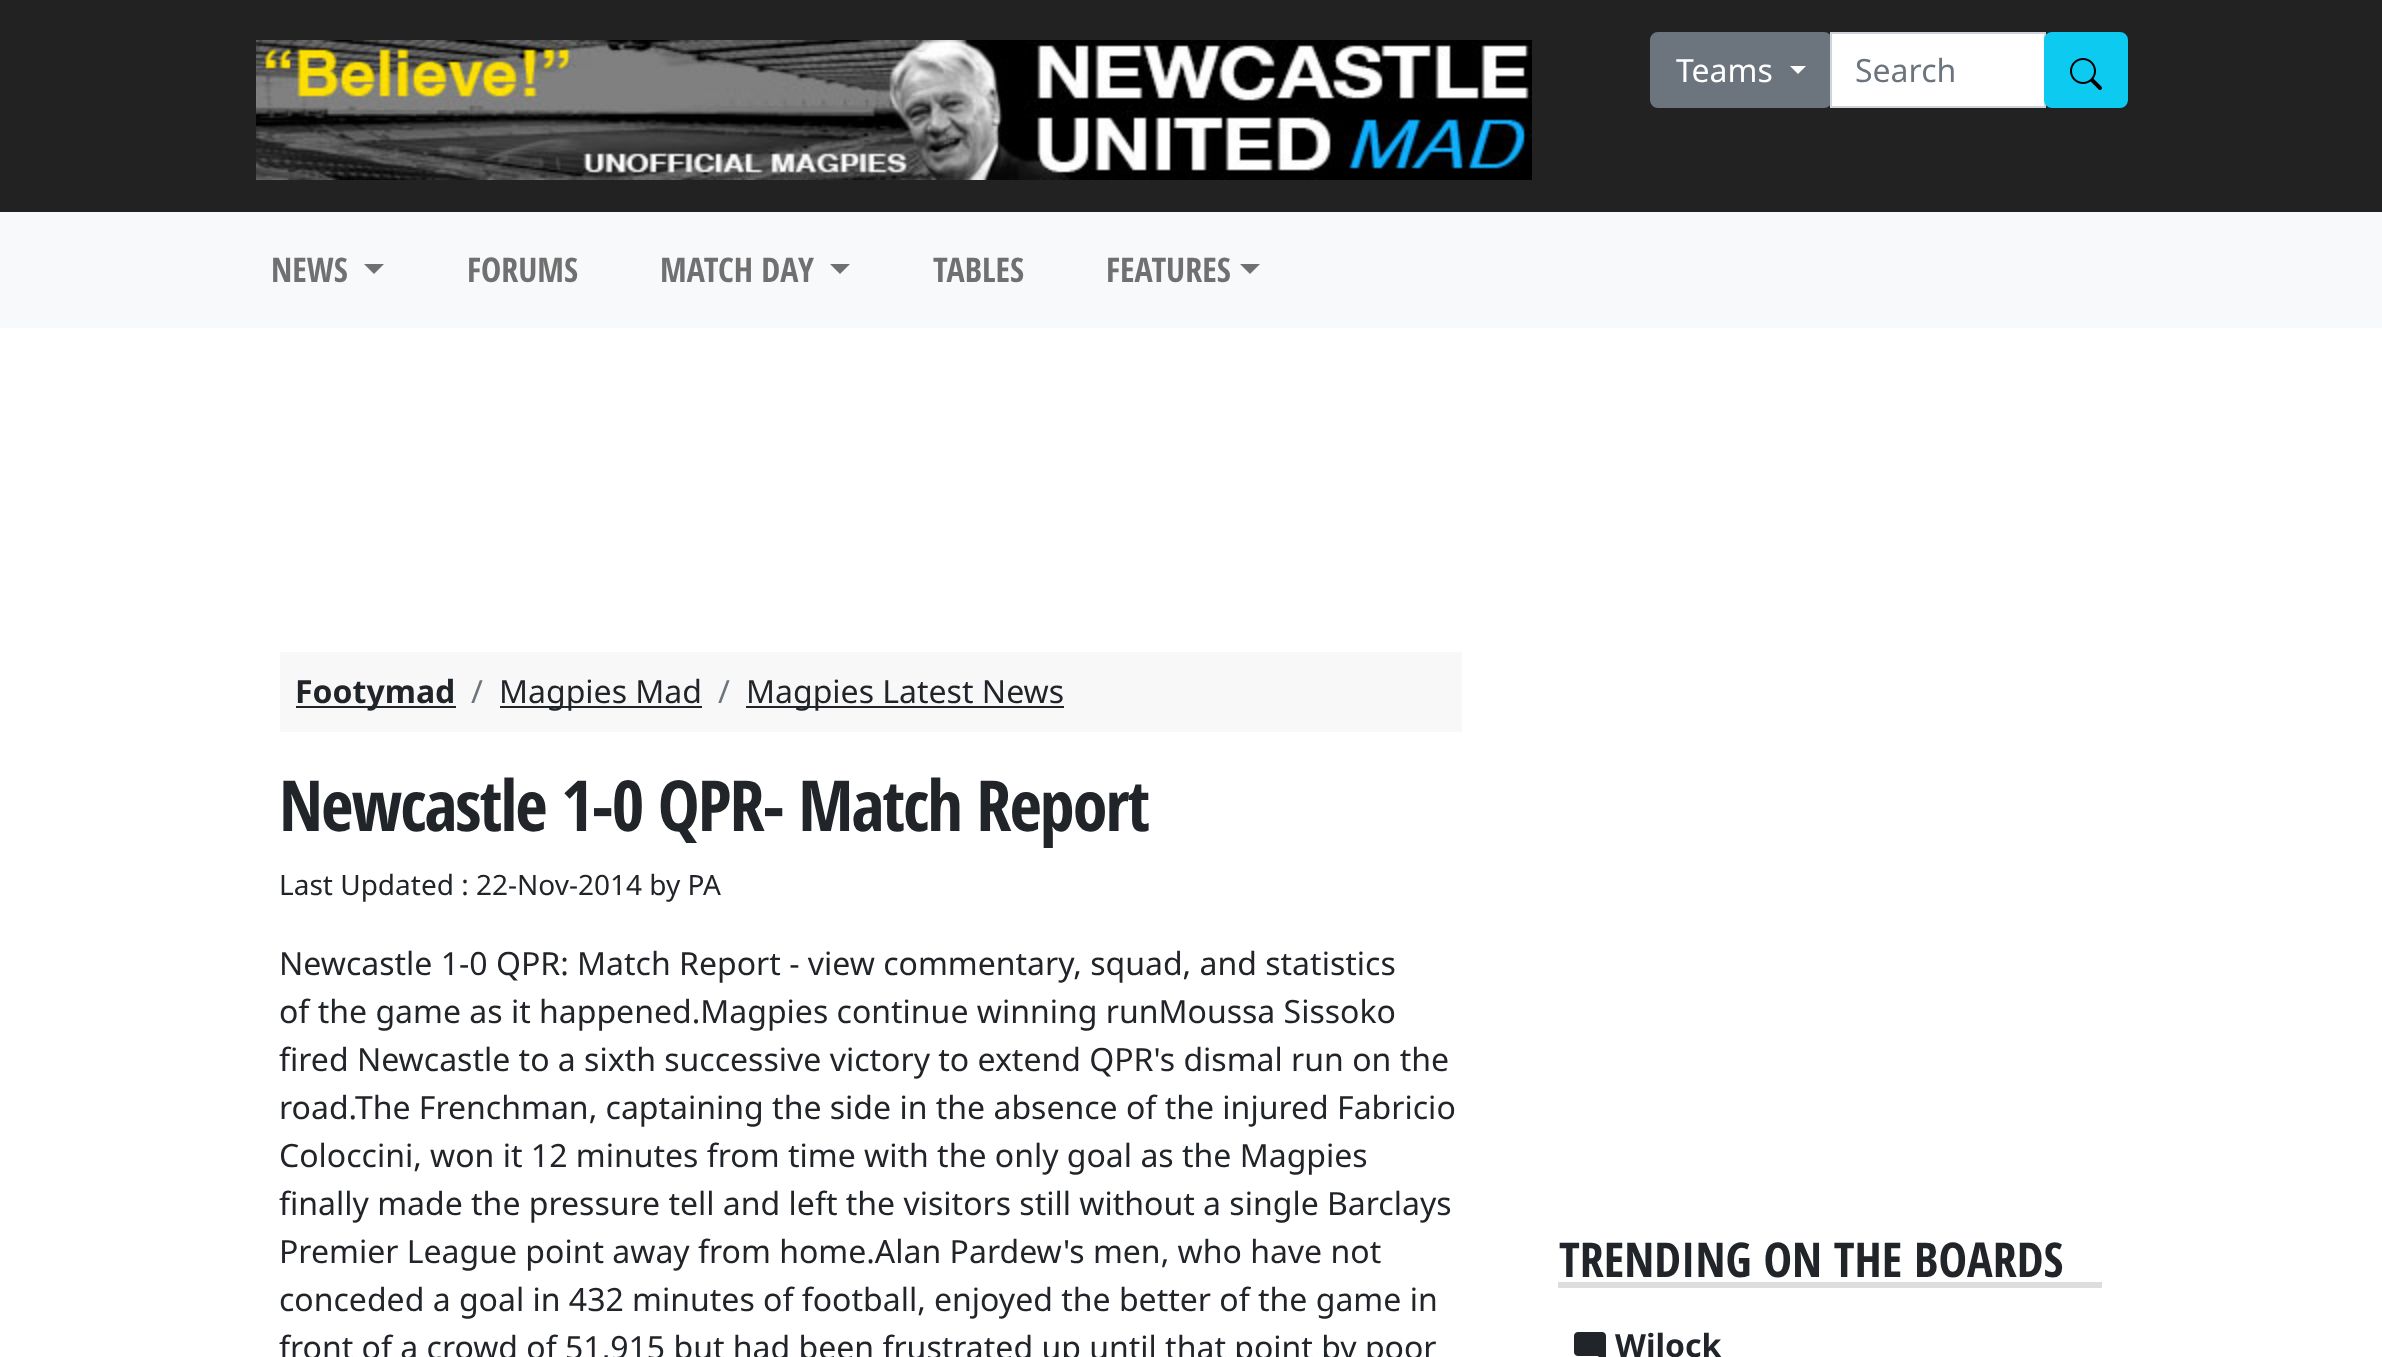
<svg xmlns="http://www.w3.org/2000/svg" width="2382" height="1357" viewBox="0 0 2382 1357">
  <rect width="100%" height="100%" fill="#fff"/>
  <path d="M0 0h2382v212H0z" fill="#222"/>
  <image x="256" y="40" width="1276" height="140" href="img/1.png"/>
  <rect x="1651" y="33" width="180" height="74" rx="7" fill="#6c757d" stroke="#6c757d" stroke-width="2"/>
  <path d="M1790 66H1806L1798 74Z" fill="#fff"/>
  <path d="M1831 33h214v74H1831z" fill="#fff" stroke="#ced4da" stroke-width="2"/>
  <rect x="2045" y="33" width="82" height="74" rx="7" fill="#0dcaf0" stroke="#0dcaf0" stroke-width="2"/>
  <image x="2070" y="58" width="32" height="32" href="img/2.png"/>
  <path d="M0 212h2382v116H0z" fill="#f8f9fa"/>
  <path d="M364 264H384L374 274Z" fill="#707071"/>
  <path d="M830 264H850L840 274Z" fill="#707071"/>
  <path d="M1240 264H1260L1250 274Z" fill="#707071"/>
  <path d="M280 652h1182v80H280z" fill="#f8f8f8"/>
  <path d="M296 706h160v2H296z" fill="#212529"/>
  <path d="M500 706h202v2H500z" fill="#212529"/>
  <path d="M746 706h318v2H746z" fill="#212529"/>
  <path d="M1558 1282h544v6H1558z" fill="#ddd"/>
  <image x="1574" y="1332" width="32" height="25" href="img/3.png"/>
  <text x="1676" y="82" font-family="Noto Sans" font-size="32" fill="#fff">Teams</text>
  <text x="1855" y="82" font-family="Noto Sans" font-size="32" fill="#6c757d">Search</text>
  <g font-family="Open Sans Condensed" font-size="34" font-weight="bold" fill="#707071">
    <text x="271" y="282">NEWS</text>
    <text x="467" y="282">FORUMS</text>
    <text x="660" y="282">MATCH DAY</text>
    <text x="933" y="282">TABLES</text>
    <text x="1106" y="282">FEATURES</text>
  </g>
  <text x="295" y="703" font-family="Noto Sans" font-size="32" font-weight="bold" fill="#212529">Footymad</text>
  <text x="471" y="703" font-family="Noto Sans" font-size="32" fill="#6c757d">/</text>
  <text x="499" y="703" font-family="Noto Sans" font-size="32" fill="#212529">Magpies Mad</text>
  <text x="718" y="703" font-family="Noto Sans" font-size="32" fill="#6c757d">/</text>
  <text x="746" y="703" font-family="Noto Sans" font-size="32" fill="#212529">Magpies Latest News</text>
  <text x="279" y="831" font-family="Open Sans Condensed" font-size="70.4" font-weight="bold" letter-spacing="-2" fill="#212529">Newcastle 1-0 QPR- Match Report</text>
  <text x="279" y="895" font-family="Noto Sans" font-size="28" fill="#212529">Last Updated : 22-Nov-2014 by PA</text>
  <g font-family="Noto Sans" font-size="32" fill="#212529">
    <text x="279" y="975">Newcastle 1-0 QPR: Match Report - view commentary, squad, and statistics</text>
    <text x="279" y="1023">of the game as it happened.Magpies continue winning runMoussa Sissoko</text>
    <text x="279" y="1071">fired Newcastle to a sixth successive victory to extend QPR's dismal run on the</text>
    <text x="279" y="1119">road.The Frenchman, captaining the side in the absence of the injured Fabricio</text>
    <text x="279" y="1167">Coloccini, won it 12 minutes from time with the only goal as the Magpies</text>
    <text x="279" y="1215">finally made the pressure tell and left the visitors still without a single Barclays</text>
    <text x="279" y="1263">Premier League point away from home.Alan Pardew's men, who have not</text>
    <text x="279" y="1311">conceded a goal in 432 minutes of football, enjoyed the better of the game in</text>
    <text x="279" y="1359">front of a crowd of 51,915 but had been frustrated up until that point by poor</text>
  </g>
  <text x="1559" y="1277" font-family="Open Sans Condensed" font-size="48" font-weight="bold" fill="#212529">TRENDING ON THE BOARDS</text>
  <text x="1615" y="1357" font-family="Noto Sans" font-size="32" font-weight="bold" fill="#212529">Wilock</text>
</svg>
